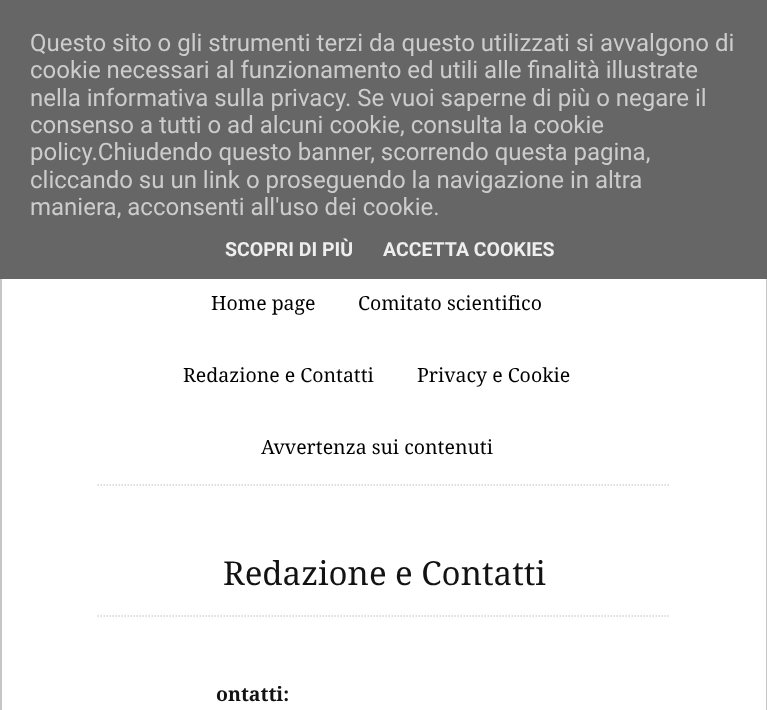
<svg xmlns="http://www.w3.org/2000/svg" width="767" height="710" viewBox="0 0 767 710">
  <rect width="100%" height="100%" fill="#fff"/>
  <path d="M1 16h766v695H1z" fill="none" stroke="#c6c6c6" stroke-width="2"/>
  <path d="M0 0h767v279H0z" fill="#666"/>
  <path d="M97.5 485H670.5" fill="none" stroke="#d3d3d3" stroke-width="1.5" stroke-dasharray="1.5 1.5"/>
  <path d="M97.5 616H670.5" fill="none" stroke="#d3d3d3" stroke-width="1.5" stroke-dasharray="1.5 1.5"/>
  <g font-family="Roboto" font-size="24" fill="#ccc">
    <text x="30" y="51">Questo sito o gli strumenti terzi da questo utilizzati si avvalgono di</text>
    <text x="30" y="78">cookie necessari al funzionamento ed utili alle finalità illustrate</text>
    <text x="30" y="106">nella informativa sulla privacy. Se vuoi saperne di più o negare il</text>
    <text x="30" y="133">consenso a tutti o ad alcuni cookie, consulta la cookie</text>
    <text x="30" y="160">policy.Chiudendo questo banner, scorrendo questa pagina,</text>
    <text x="30" y="188">cliccando su un link o proseguendo la navigazione in altra</text>
    <text x="30" y="215">maniera, acconsenti all'uso dei cookie.</text>
  </g>
  <g font-family="Roboto" font-size="19.5" font-weight="bold" fill="#eee">
    <text x="225" y="256">SCOPRI DI PIÙ</text>
    <text x="383" y="256">ACCETTA COOKIES</text>
  </g>
  <g font-family="Droid Serif" font-size="19.5" fill="#000">
    <text x="211" y="310">Home page</text>
    <text x="358" y="310">Comitato scientifico</text>
    <text x="183" y="382">Redazione e Contatti</text>
    <text x="417" y="382">Privacy e Cookie</text>
    <text x="261" y="454">Avvertenza sui contenuti</text>
  </g>
  <text x="223" y="585" font-family="Droid Serif" font-size="33" fill="#131313">Redazione e Contatti</text>
  <text x="216" y="701" font-family="Droid Serif" font-size="19.5" font-weight="bold" fill="#131313">ontatti:</text>
</svg>
